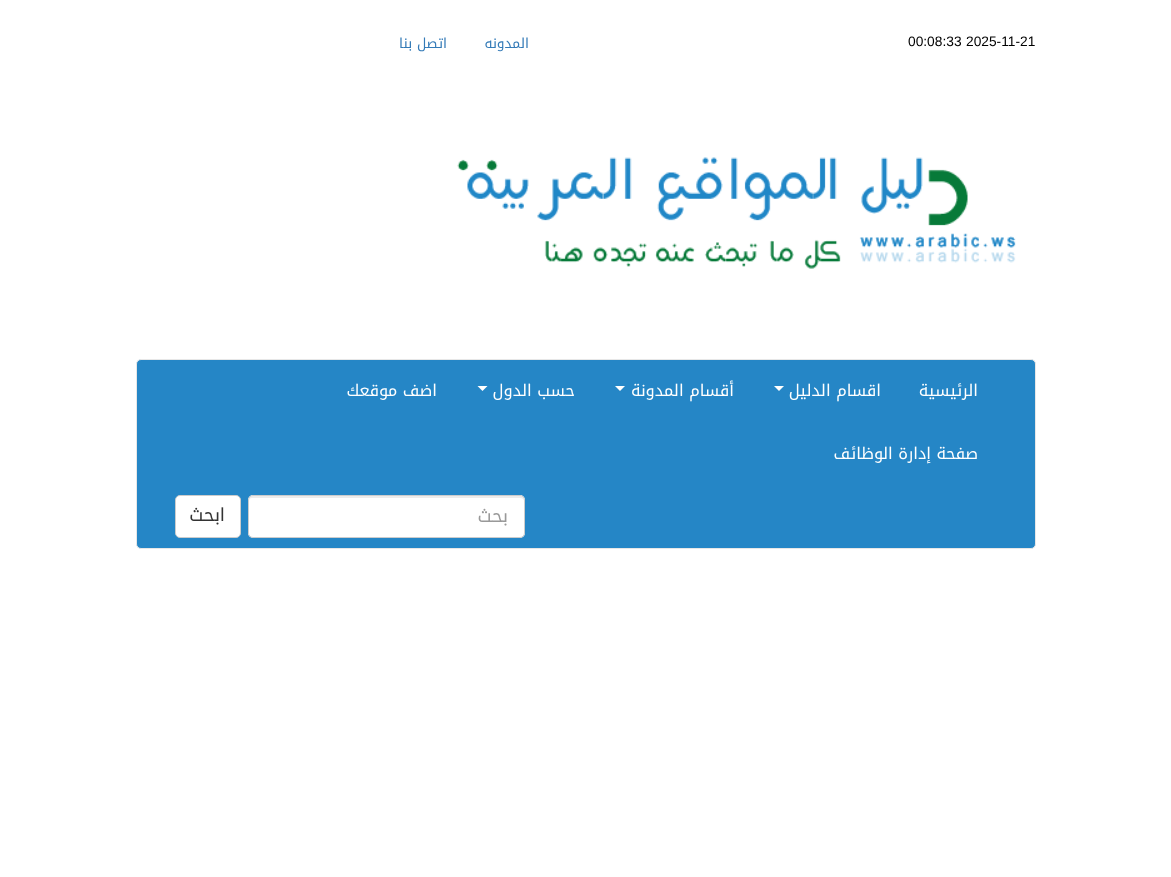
<svg xmlns="http://www.w3.org/2000/svg" width="1171" height="877" viewBox="0 0 1171 877">
  <rect width="100%" height="100%" fill="#fff"/>
  <image x="457" y="157" width="559" height="112" href="img/1.png"/>
  <rect x="136.5" y="359.5" width="899" height="189" rx="4.5" fill="#2586c6" stroke="#e7e7e7"/>
  <path d="M774 386H784L779 391Z" fill="#fff"/>
  <path d="M615 386H625L620 391Z" fill="#fff"/>
  <path d="M477.5 386H487.5L482.5 391Z" fill="#fff"/>
  <rect x="248" y="495" width="277" height="43" rx="5" fill="#fff"/>
  <path d="M252 498H520C522 498 524 499 524 501C524 498 523 496 520 496H253C250 496 249 498 249 501C249 499 250 498 252 498Z" fill="#ececec"/>
  <rect x="248.5" y="495.5" width="276" height="42" rx="4.5" fill="none" stroke="#ccc"/>
  <rect x="175.5" y="495.5" width="65" height="42" rx="4.5" fill="#fff" stroke="#ccc"/>
  <g font-family="Liberation Sans" font-size="13.75" fill="#000">
    <text x="966" y="46">2025-11-21</text>
    <text x="908" y="46">00:08:33</text>
  </g>
  <g font-family="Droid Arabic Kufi" font-size="13.75" direction="rtl" fill="#337ab7">
    <text x="529" y="48">المدونه</text>
    <text x="447" y="48">اتصل بنا</text>
  </g>
  <g font-family="Droid Arabic Kufi" font-size="16.25" direction="rtl" fill="#fff">
    <text x="978" y="396">الرئيسية</text>
    <text x="881" y="396">اقسام الدليل</text>
    <text x="734" y="396">أقسام المدونة</text>
    <text x="575" y="396">حسب الدول</text>
    <text x="437" y="396">اضف موقعك</text>
    <text x="978" y="459">صفحة إدارة الوظائف</text>
  </g>
  <text x="508" y="522" font-family="Droid Arabic Kufi" font-size="18" direction="rtl" fill="#999">بحث</text>
  <text x="225" y="521" font-family="Droid Arabic Kufi" font-size="18" direction="rtl" fill="#333">ابحث</text>
</svg>
